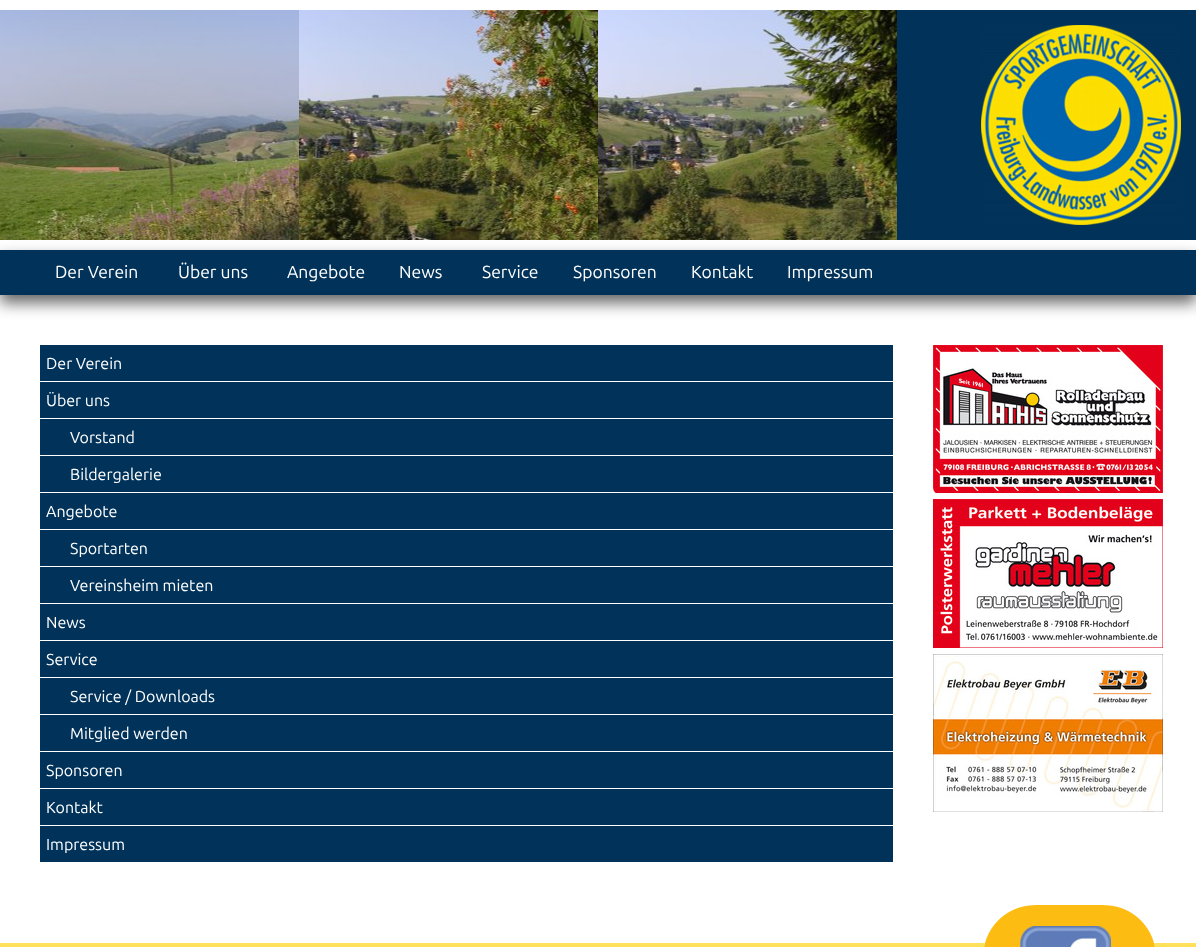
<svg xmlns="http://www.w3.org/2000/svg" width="1196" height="947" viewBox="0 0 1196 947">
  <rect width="100%" height="100%" fill="#fff"/>
  <path d="M897 10h299v230H897z" fill="#00325a"/>
  <path d="M0 258h1196v45H0z" fill="#666" filter="blur(7.5px)"/>
  <image x="0" y="10" width="299" height="230" href="img/1.png"/>
  <image x="299" y="10" width="299" height="230" href="img/2.png"/>
  <image x="598" y="10" width="299" height="230" href="img/3.png"/>
  <image x="981" y="25" width="200" height="200" href="img/4.png"/>
  <path d="M0 250h1196v45H0z" fill="#00325a"/>
  <path d="M40 345h853v36H40z" fill="#00325a"/>
  <path d="M40 382h853v36H40z" fill="#00325a"/>
  <path d="M40 419h853v36H40z" fill="#00325a"/>
  <path d="M40 456h853v36H40z" fill="#00325a"/>
  <path d="M40 493h853v36H40z" fill="#00325a"/>
  <path d="M40 530h853v36H40z" fill="#00325a"/>
  <path d="M40 567h853v36H40z" fill="#00325a"/>
  <path d="M40 604h853v36H40z" fill="#00325a"/>
  <path d="M40 641h853v36H40z" fill="#00325a"/>
  <path d="M40 678h853v36H40z" fill="#00325a"/>
  <path d="M40 715h853v36H40z" fill="#00325a"/>
  <path d="M40 752h853v36H40z" fill="#00325a"/>
  <path d="M40 789h853v36H40z" fill="#00325a"/>
  <path d="M40 826h853v36H40z" fill="#00325a"/>
  <image x="933" y="345" width="230" height="148" href="img/5.png"/>
  <image x="933" y="499" width="230" height="149" href="img/6.png"/>
  <image x="933" y="654" width="230" height="158" href="img/7.png"/>
  <path d="M0 943h1196v4H0z" fill="#fee05a"/>
  <image x="983" y="905" width="173" height="42" href="img/8.png"/>
  <g font-family="Ubuntu" font-size="17.5" fill="#fff">
    <text x="55" y="278">Der Verein</text>
    <text x="178" y="278">Über uns</text>
    <text x="287" y="278">Angebote</text>
    <text x="399" y="278">News</text>
    <text x="482" y="278">Service</text>
    <text x="573" y="278">Sponsoren</text>
    <text x="691" y="278">Kontakt</text>
    <text x="787" y="278">Impressum</text>
  </g>
  <g font-family="Ubuntu" font-size="16" fill="#fff">
    <text x="46" y="369">Der Verein</text>
    <text x="46" y="406">Über uns</text>
    <text x="70" y="443">Vorstand</text>
    <text x="70" y="480">Bildergalerie</text>
    <text x="46" y="517">Angebote</text>
    <text x="70" y="554">Sportarten</text>
    <text x="70" y="591">Vereinsheim mieten</text>
    <text x="46" y="628">News</text>
    <text x="46" y="665">Service</text>
    <text x="70" y="702">Service / Downloads</text>
    <text x="70" y="739">Mitglied werden</text>
    <text x="46" y="776">Sponsoren</text>
    <text x="46" y="813">Kontakt</text>
    <text x="46" y="850">Impressum</text>
  </g>
</svg>
